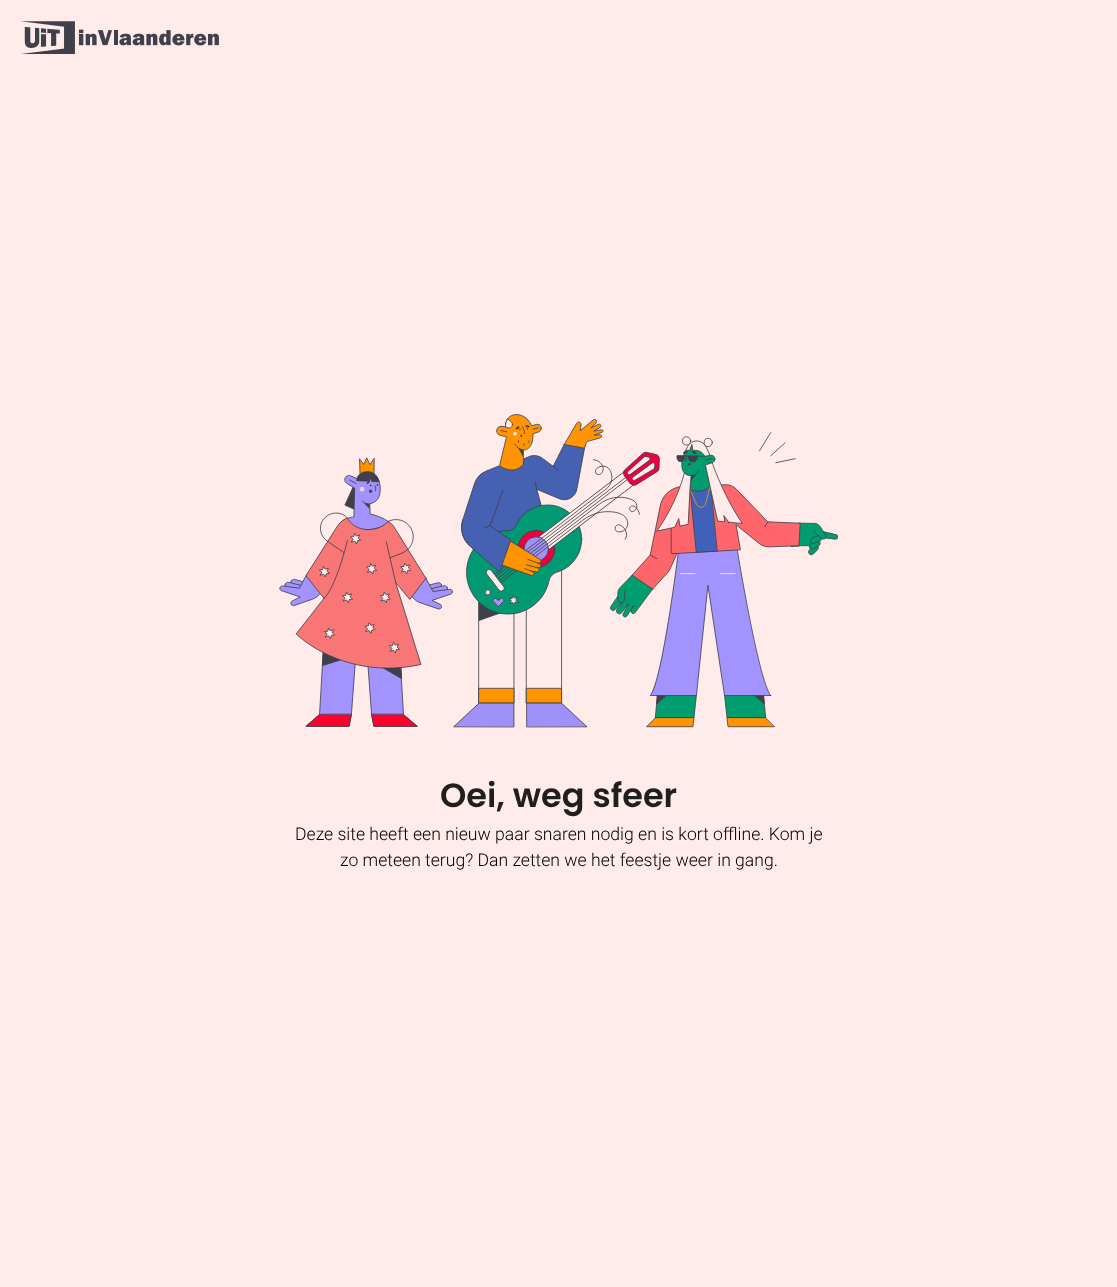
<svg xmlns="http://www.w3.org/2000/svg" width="1117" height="1287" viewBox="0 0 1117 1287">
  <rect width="100%" height="100%" fill="#ffecea"/>
  <image x="20" y="21" width="199" height="33" href="img/1.png"/>
  <image x="279" y="414" width="559" height="314" href="img/2.png"/>
  <text x="440" y="807" font-family="Poppins" font-size="33.5" font-weight="600" fill="#211f1e">Oei, weg sfeer</text>
  <g font-family="Roboto" font-size="17.6" font-weight="300" fill="#000">
    <text x="295" y="840">Deze site heeft een nieuw paar snaren nodig en is kort offline. Kom je</text>
    <text x="340" y="866">zo meteen terug? Dan zetten we het feestje weer in gang.</text>
  </g>
</svg>
